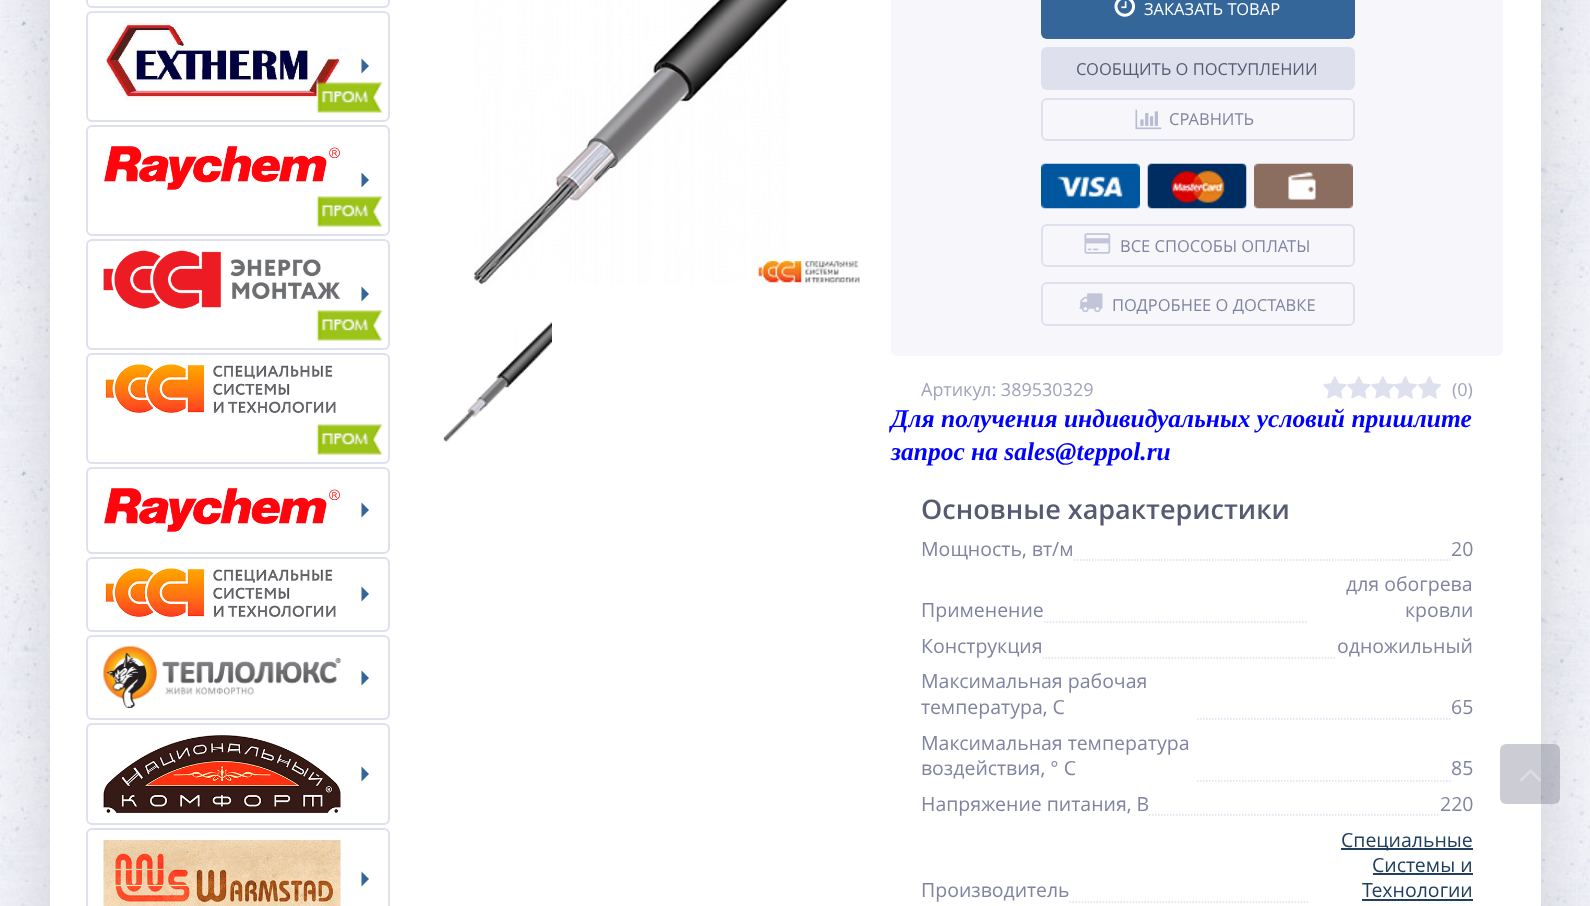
<svg xmlns="http://www.w3.org/2000/svg" width="1590" height="906" viewBox="0 0 1590 906">
  <rect width="100%" height="100%" fill="#fff"/>
  <image x="0" y="0" width="1590" height="906" href="img/1.png"/>
  <path d="M50 -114h1491v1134H50z" fill="#00000026" filter="blur(38px)"/>
  <path d="M50 0h1491v906H50z" fill="#fff"/>
  <rect x="87" y="-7" width="302" height="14" rx="5" fill="none" stroke="#dee0ee" stroke-width="2"/>
  <rect x="87" y="12" width="302" height="109" rx="5" fill="none" stroke="#dee0ee" stroke-width="2"/>
  <image x="104" y="22" width="237" height="79" href="img/2.png"/>
  <path d="M361.5 73.5V58.5L369 66Z" fill="#346699"/>
  <image x="316" y="79" width="67" height="34" href="img/3.png"/>
  <rect x="87" y="126" width="302" height="109" rx="5" fill="none" stroke="#dee0ee" stroke-width="2"/>
  <image x="104" y="146" width="236" height="44" href="img/4.png"/>
  <path d="M361.5 187.5V172.5L369 180Z" fill="#346699"/>
  <image x="316" y="196" width="67" height="31" href="img/5.png"/>
  <rect x="87" y="240" width="302" height="109" rx="5" fill="none" stroke="#dee0ee" stroke-width="2"/>
  <image x="103" y="250" width="238" height="59" href="img/6.png"/>
  <path d="M361.5 301.5V286.5L369 294Z" fill="#346699"/>
  <image x="316" y="310" width="67" height="31" href="img/5.png"/>
  <rect x="87" y="354" width="302" height="109" rx="5" fill="none" stroke="#dee0ee" stroke-width="2"/>
  <image x="105" y="364" width="231" height="49" href="img/7.png"/>
  <image x="316" y="424" width="67" height="31" href="img/5.png"/>
  <rect x="87" y="468" width="302" height="85" rx="5" fill="none" stroke="#dee0ee" stroke-width="2"/>
  <image x="104" y="488" width="236" height="44" href="img/4.png"/>
  <path d="M361.5 517.5V502.5L369 510Z" fill="#346699"/>
  <rect x="87" y="558" width="302" height="73" rx="5" fill="none" stroke="#dee0ee" stroke-width="2"/>
  <image x="105" y="568" width="231" height="49" href="img/7.png"/>
  <path d="M361.5 601.5V586.5L369 594Z" fill="#346699"/>
  <rect x="87" y="636" width="302" height="83" rx="5" fill="none" stroke="#dee0ee" stroke-width="2"/>
  <image x="103" y="646" width="238" height="62" href="img/8.png"/>
  <path d="M361.5 685.5V670.5L369 678Z" fill="#346699"/>
  <rect x="87" y="724" width="302" height="100" rx="5" fill="none" stroke="#dee0ee" stroke-width="2"/>
  <image x="103" y="735" width="238" height="78" href="img/9.png"/>
  <path d="M361.5 781.5V766.5L369 774Z" fill="#346699"/>
  <rect x="87" y="829" width="302" height="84" rx="5" fill="none" stroke="#dee0ee" stroke-width="2"/>
  <image x="103" y="840" width="238" height="66" href="img/10.png"/>
  <path d="M361.5 886.5V871.5L369 879Z" fill="#346699"/>
  <image x="473" y="0" width="316" height="285" href="img/11.png"/>
  <image x="757" y="261" width="103" height="23" href="img/12.png"/>
  <image x="443" y="322" width="109" height="120" href="img/13.png"/>
  <rect x="891" y="-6" width="612" height="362" rx="6" fill="#f6f6fb"/>
  <rect x="1041" y="-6" width="314" height="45" rx="6" fill="#346699"/>
  <image x="1114" y="0" width="22" height="17" href="img/14.png"/>
  <rect x="1041" y="47" width="314" height="43" rx="6" fill="#dee0ee"/>
  <rect x="1042" y="99" width="312" height="41" rx="5" fill="none" stroke="#dee0ee" stroke-width="2"/>
  <image x="1135" y="109" width="27" height="21" href="img/15.png"/>
  <image x="1041" y="163" width="99" height="46" href="img/16.png"/>
  <image x="1147" y="163" width="100" height="46" href="img/17.png"/>
  <image x="1254" y="163" width="99" height="46" href="img/18.png"/>
  <rect x="1042" y="225" width="312" height="41" rx="5" fill="none" stroke="#dee0ee" stroke-width="2"/>
  <image x="1084" y="233" width="27" height="21" href="img/19.png"/>
  <rect x="1042" y="283" width="312" height="42" rx="5" fill="none" stroke="#dee0ee" stroke-width="2"/>
  <image x="1079" y="293" width="24" height="20" href="img/20.png"/>
  <image x="1323" y="376" width="24" height="23" href="img/21.png"/>
  <image x="1347" y="376" width="24" height="23" href="img/21.png"/>
  <image x="1371" y="376" width="24" height="23" href="img/21.png"/>
  <image x="1394" y="376" width="23" height="23" href="img/22.png"/>
  <image x="1417" y="376" width="24" height="23" href="img/23.png"/>
  <path d="M1074 560H1450.5" fill="none" stroke="#dee0ee" stroke-width="1.5" stroke-dasharray="1.5 1.5"/>
  <path d="M1044 622H1308" fill="none" stroke="#dee0ee" stroke-width="1.5" stroke-dasharray="1.5 1.5"/>
  <path d="M1042.5 658H1336.5" fill="none" stroke="#dee0ee" stroke-width="1.5" stroke-dasharray="1.5 1.5"/>
  <path d="M1197 719H1450.5" fill="none" stroke="#dee0ee" stroke-width="1.5" stroke-dasharray="1.5 1.5"/>
  <path d="M1197 781H1450.5" fill="none" stroke="#dee0ee" stroke-width="1.5" stroke-dasharray="1.5 1.5"/>
  <path d="M1149 815H1440" fill="none" stroke="#dee0ee" stroke-width="1.5" stroke-dasharray="1.5 1.5"/>
  <path d="M1069.5 902H1308" fill="none" stroke="#dee0ee" stroke-width="1.5" stroke-dasharray="1.5 1.5"/>
  <path d="M1341 848h132v2H1341z" fill="#214060"/>
  <path d="M1373 873h100v2H1373z" fill="#214060"/>
  <path d="M1362 899h111v2H1362z" fill="#214060"/>
  <rect x="1500" y="744" width="60" height="60" rx="6" fill="#575b714d"/>
  <image x="1520" y="769" width="22" height="13" href="img/24.png"/>
  <text x="1144" y="15" font-family="Open Sans" font-size="16.5" fill="#fff">ЗАКАЗАТЬ ТОВАР</text>
  <text x="1076" y="75" font-family="Open Sans" font-size="16.5" fill="#575b71">СООБЩИТЬ О ПОСТУПЛЕНИИ</text>
  <g font-family="Open Sans" font-size="16.5" fill="#8184a1">
    <text x="1169" y="125">СРАВНИТЬ</text>
    <text x="1120" y="252">ВСЕ СПОСОБЫ ОПЛАТЫ</text>
    <text x="1112" y="311">ПОДРОБНЕЕ О ДОСТАВКЕ</text>
  </g>
  <g font-family="Open Sans" font-size="18" fill="#a0a4bc">
    <text x="921" y="396">Артикул: 389530329</text>
    <text x="1452" y="396">(0)</text>
  </g>
  <g font-family="Liberation Serif" font-size="25.5" font-weight="bold" font-style="italic" fill="#00f">
    <text x="891" y="427">Для получения индивидуальных условий пришлите</text>
    <text x="891" y="460">запрос на sales@teppol.ru</text>
  </g>
  <text x="921" y="519" font-family="Open Sans" font-size="27" font-weight="600" fill="#575b71">Основные характеристики</text>
  <g font-family="Open Sans" font-size="19.5" fill="#8184a1">
    <text x="921" y="556">Мощность, вт/м</text>
    <text x="1451" y="556">20</text>
    <text x="921" y="617">Применение</text>
    <text x="1346" y="591">для обогрева</text>
    <text x="1405" y="617">кровли</text>
    <text x="921" y="653">Конструкция</text>
    <text x="1337" y="653">одножильный</text>
    <text x="921" y="688">Максимальная рабочая</text>
    <text x="921" y="714">температура, С</text>
    <text x="1451" y="714">65</text>
    <text x="921" y="750">Максимальная температура</text>
    <text x="921" y="775">воздействия, ° С</text>
    <text x="1451" y="775">85</text>
    <text x="921" y="811">Напряжение питания, В</text>
    <text x="1440" y="811">220</text>
    <text x="921" y="897">Производитель</text>
  </g>
  <g font-family="Open Sans" font-size="19.5" fill="#214060">
    <text x="1341" y="847">Специальные</text>
    <text x="1372" y="872">Системы и</text>
    <text x="1362" y="897">Технологии</text>
  </g>
</svg>
